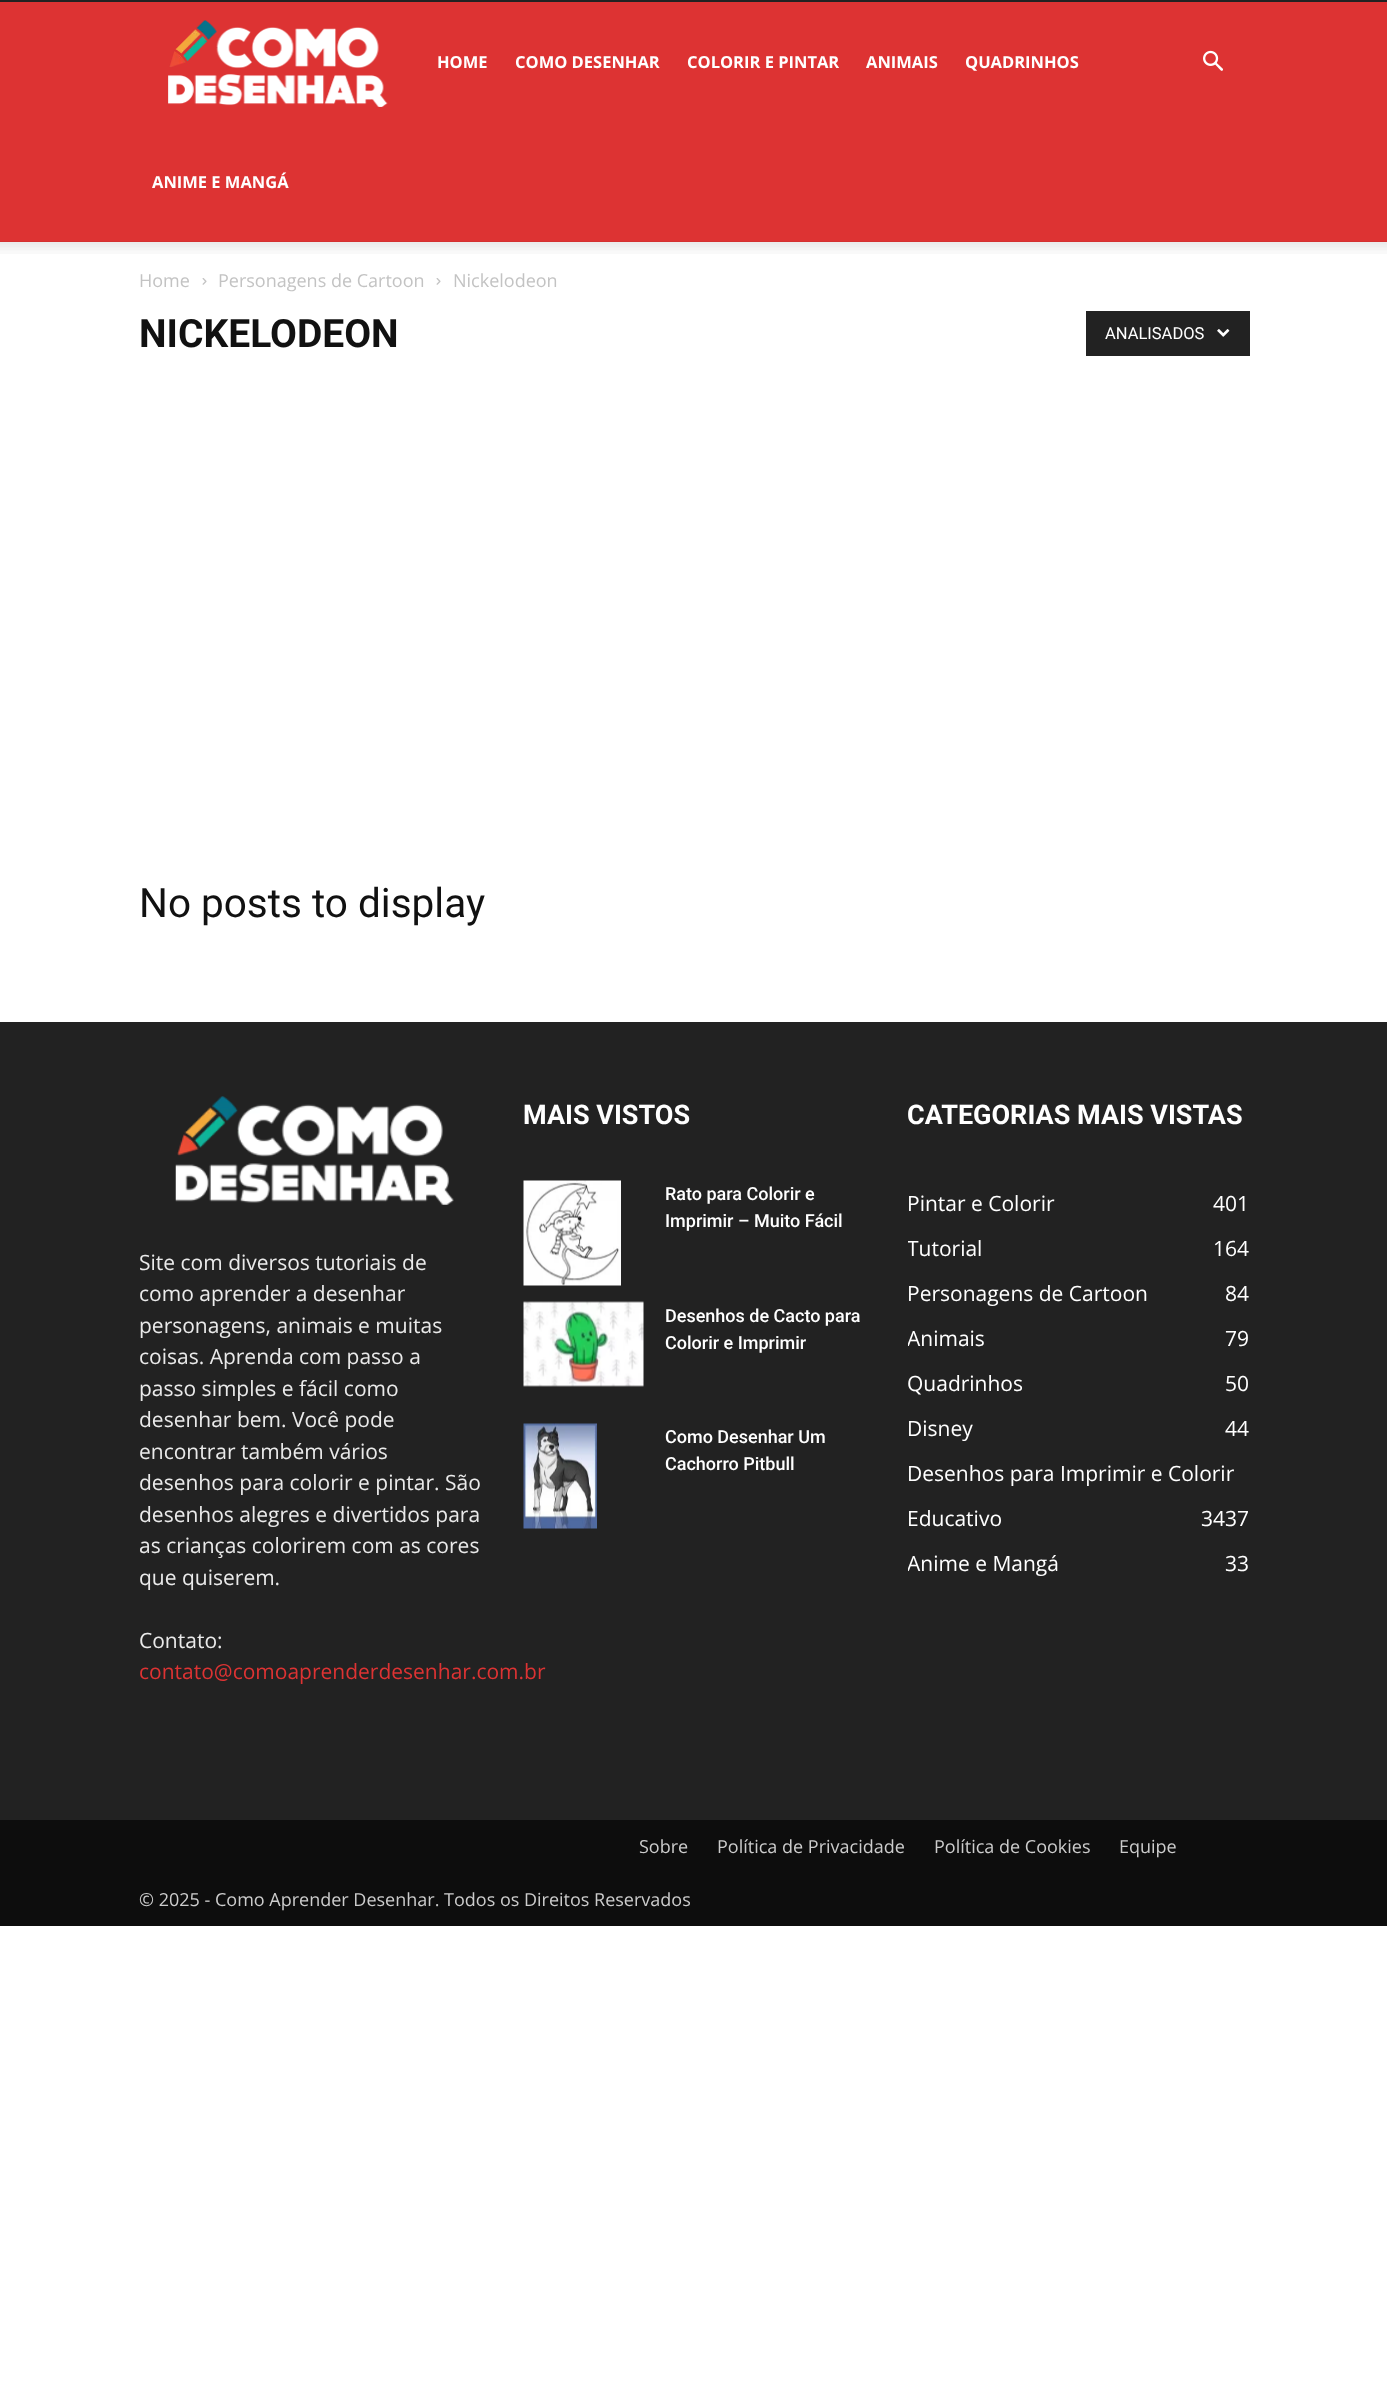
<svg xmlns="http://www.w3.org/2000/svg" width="1387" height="2396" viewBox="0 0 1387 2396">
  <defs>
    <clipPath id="clip1"><path d="M908 1089h342v497H908z"/></clipPath>
  </defs>
  <rect width="100%" height="100%" fill="#fff"/>
  <path d="M0 0h1387v2H0z" fill="#222"/>
  <path d="M0 2h1387v240H0z" fill="#d33"/>
  <image x="168" y="20" width="220" height="87" href="img/1.png"/>
  <image x="1203" y="50" width="20" height="21" href="img/2.png"/>
  <image x="0" y="241" width="1387" height="13" href="img/3.png"/>
  <image x="202" y="278" width="5" height="7" href="img/4.png"/>
  <image x="436" y="278" width="5" height="7" href="img/4.png"/>
  <path d="M1086 311h164v45H1086z" fill="#222"/>
  <image x="1217" y="329" width="13" height="8" href="img/5.png"/>
  <path d="M0 1022h1387v798H0z" fill="#222"/>
  <image x="175" y="1096" width="279" height="109" href="img/6.png"/>
  <image x="523" y="1180" width="98" height="106" href="img/7.png"/>
  <image x="523" y="1301" width="121" height="86" href="img/8.png"/>
  <image x="523" y="1423" width="74" height="106" href="img/9.png"/>
  <path d="M0 1820h1387v106H0z" fill="#0d0d0d"/>
  <g font-family="Open Sans" font-size="16.5" font-weight="bold" fill="#fff">
    <text x="437" y="68">HOME</text>
    <text x="515" y="68">COMO DESENHAR</text>
    <text x="687" y="68">COLORIR E PINTAR</text>
    <text x="866" y="68">ANIMAIS</text>
    <text x="965" y="68">QUADRINHOS</text>
    <text x="152" y="188">ANIME E MANGÁ</text>
  </g>
  <g font-family="Open Sans" font-size="18" fill="#c3c3c3">
    <text x="139" y="287">Home</text>
    <text x="218" y="287">Personagens de Cartoon</text>
    <text x="453" y="287">Nickelodeon</text>
  </g>
  <text x="139" y="347" font-family="Roboto" font-size="39" font-weight="bold" fill="#111">NICKELODEON</text>
  <text x="1105" y="339" font-family="Roboto" font-size="16.5" fill="#fff">ANALISADOS</text>
  <text x="139" y="917" font-family="Roboto" font-size="40.5" fill="#111">No posts to display</text>
  <g font-family="Open Sans" font-size="21" fill="#eaeaea">
    <text x="139" y="1270">Site com diversos tutoriais de</text>
    <text x="139" y="1301">como aprender a desenhar</text>
    <text x="139" y="1333">personagens, animais e muitas</text>
    <text x="139" y="1364">coisas. Aprenda com passo a</text>
    <text x="139" y="1396">passo simples e fácil como</text>
    <text x="139" y="1427">desenhar bem. Você pode</text>
    <text x="139" y="1459">encontrar também vários</text>
    <text x="139" y="1490">desenhos para colorir e pintar. São</text>
    <text x="139" y="1522">desenhos alegres e divertidos para</text>
    <text x="139" y="1553">as crianças colorirem com as cores</text>
    <text x="139" y="1585">que quiserem.</text>
    <text x="139" y="1648">Contato:</text>
  </g>
  <text x="139" y="1679" font-family="Open Sans" font-size="21" fill="#d33">contato@comoaprenderdesenhar.com.br</text>
  <text x="523" y="1124" font-family="Roboto" font-size="27" font-weight="bold" fill="#fff">MAIS VISTOS</text>
  <g font-family="Roboto" font-size="18" font-weight="500" fill="#fff">
    <text x="665" y="1200">Rato para Colorir e</text>
    <text x="665" y="1227">Imprimir – Muito Fácil</text>
    <text x="665" y="1322">Desenhos de Cacto para</text>
    <text x="665" y="1349">Colorir e Imprimir</text>
    <text x="665" y="1443">Como Desenhar Um</text>
    <text x="665" y="1470">Cachorro Pitbull</text>
  </g>
  <g clip-path="url(#clip1)">
    <text x="907" y="1124" font-family="Roboto" font-size="27" font-weight="bold" fill="#fff">CATEGORIAS MAIS VISTAS</text>
  </g>
  <g font-family="Open Sans" font-size="21" fill="#fff">
    <text x="907" y="1211">Pintar e Colorir</text>
    <text x="1213" y="1211">401</text>
  </g>
  <g clip-path="url(#clip1)">
    <text x="907" y="1256" font-family="Open Sans" font-size="21" fill="#fff">Tutorial</text>
  </g>
  <g font-family="Open Sans" font-size="21" fill="#fff">
    <text x="1213" y="1256">164</text>
    <text x="907" y="1301">Personagens de Cartoon</text>
    <text x="1225" y="1301">84</text>
  </g>
  <g clip-path="url(#clip1)">
    <text x="907" y="1346" font-family="Open Sans" font-size="21" fill="#fff">Animais</text>
  </g>
  <g font-family="Open Sans" font-size="21" fill="#fff">
    <text x="1225" y="1346">79</text>
    <text x="907" y="1391">Quadrinhos</text>
    <text x="1225" y="1391">50</text>
    <text x="907" y="1436">Disney</text>
    <text x="1225" y="1436">44</text>
    <text x="907" y="1481">Desenhos para Imprimir e Colorir</text>
    <text x="1225" y="1526">37</text>
    <text x="907" y="1526">Educativo</text>
    <text x="1201" y="1526">34</text>
  </g>
  <g clip-path="url(#clip1)">
    <text x="907" y="1571" font-family="Open Sans" font-size="21" fill="#fff">Anime e Mangá</text>
  </g>
  <text x="1225" y="1571" font-family="Open Sans" font-size="21" fill="#fff">33</text>
  <g font-family="Open Sans" font-size="18" fill="#ccc">
    <text x="639" y="1853">Sobre</text>
    <text x="717" y="1853">Política de Privacidade</text>
    <text x="934" y="1853">Política de Cookies</text>
    <text x="1119" y="1853">Equipe</text>
    <text x="139" y="1906">© 2025 - Como Aprender Desenhar. Todos os Direitos Reservados</text>
  </g>
</svg>
